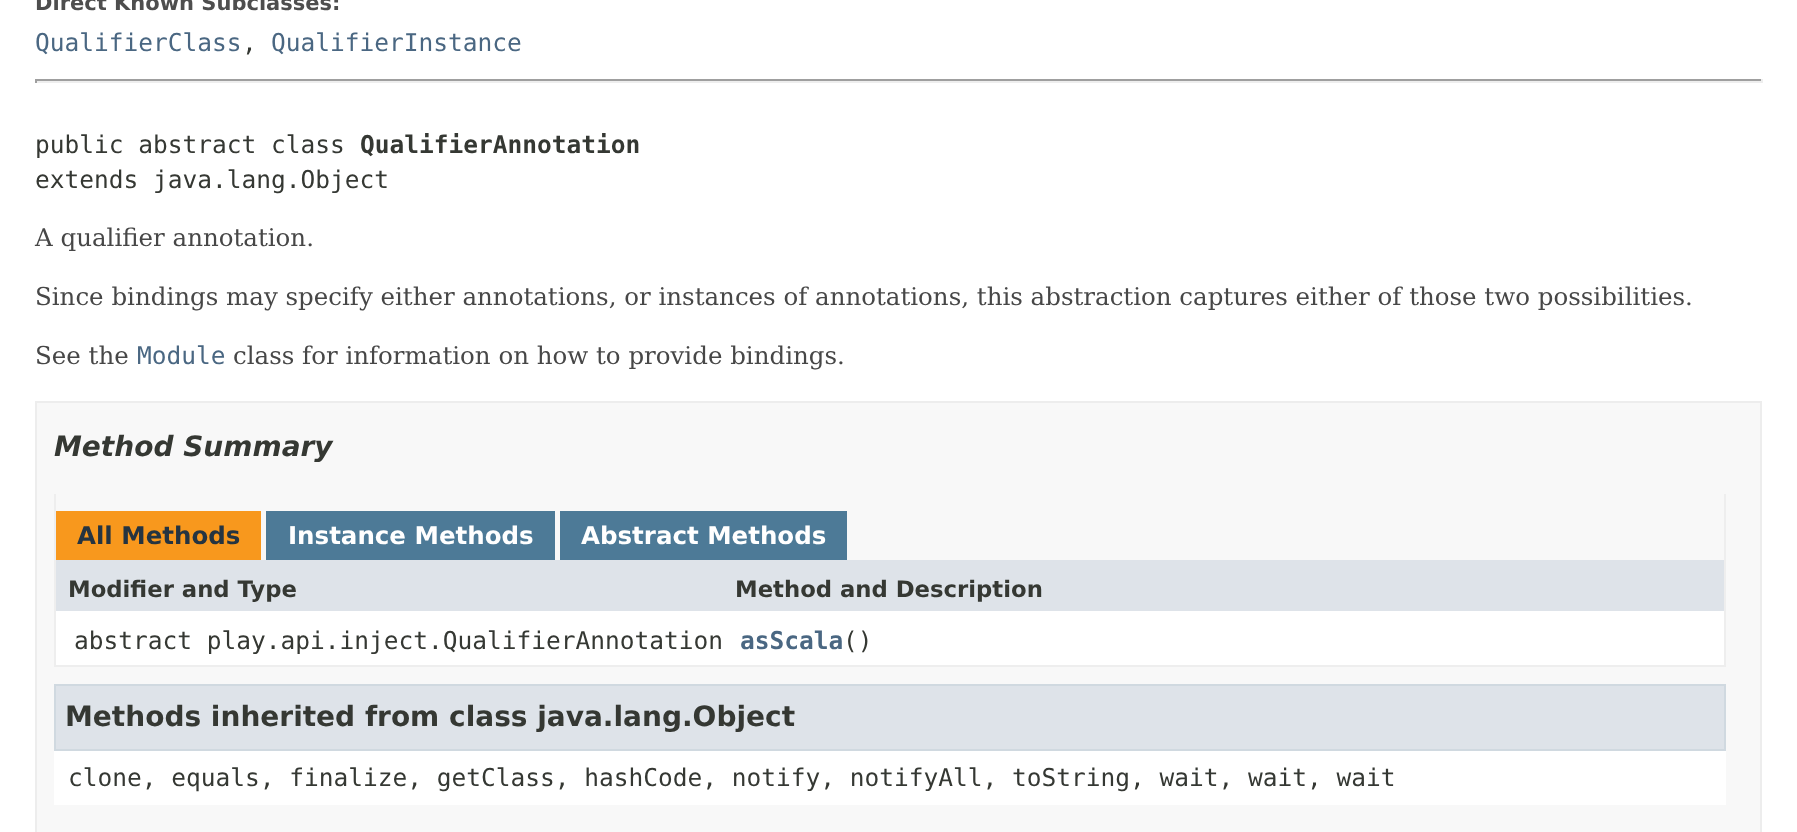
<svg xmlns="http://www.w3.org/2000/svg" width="1797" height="832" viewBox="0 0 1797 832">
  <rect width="100%" height="100%" fill="#fff"/>
  <path d="M35 79h1727v2H35z" fill="#9f9f9f"/>
  <path d="M1761 79h2v4H1761z" fill="#eee"/>
  <path d="M35 81h1727v2H35z" fill="#eee"/>
  <path d="M35 79h2v4H35z" fill="#9f9f9f"/>
  <path d="M36 402h1725v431H36z" fill="#f8f8f8" stroke="#ededed" stroke-width="2"/>
  <path d="M1724 494h2v173H1724z" fill="#eee"/>
  <path d="M54 665h1672v2H54z" fill="#eee"/>
  <path d="M54 494h2v173H54z" fill="#eee"/>
  <path d="M56 511h205v49H56z" fill="#f8981d"/>
  <path d="M266 511h289v49H266z" fill="#4d7a97"/>
  <path d="M560 511h287v49H560z" fill="#4d7a97"/>
  <path d="M56 560h1668v51H56z" fill="#dee3e9"/>
  <path d="M56 611h1668v54H56z" fill="#fff"/>
  <path d="M54 751h1672v54H54z" fill="#fff"/>
  <path d="M55 685h1670v65H55z" fill="#dee3e9" stroke="#d0d9e0" stroke-width="2"/>
  <text x="35" y="10" font-family="DejaVu Sans" font-size="21" font-weight="bold" fill="#4e4e4e">Direct Known Subclasses:</text>
  <text x="35" y="51" font-family="DejaVu Sans Mono" font-size="24.5" fill="#4a6782">QualifierClass</text>
  <text x="242" y="51" font-family="DejaVu Sans Mono" font-size="24.5" fill="#353833">,</text>
  <text x="271" y="51" font-family="DejaVu Sans Mono" font-size="24.5" fill="#4a6782">QualifierInstance</text>
  <text x="35" y="153" font-family="DejaVu Sans Mono" font-size="24.5" fill="#353833">public abstract class</text>
  <text x="360" y="153" font-family="DejaVu Sans Mono" font-size="24.5" font-weight="bold" fill="#353833">QualifierAnnotation</text>
  <text x="35" y="188" font-family="DejaVu Sans Mono" font-size="24.5" fill="#353833">extends java.lang.Object</text>
  <g font-family="DejaVu Serif" font-size="24.5" fill="#474747">
    <text x="35" y="246">A qualifier annotation.</text>
    <text x="35" y="305">Since bindings may specify either annotations, or instances of annotations, this abstraction captures either of those two possibilities.</text>
    <text x="35" y="364">See the</text>
  </g>
  <text x="137" y="364" font-family="DejaVu Sans Mono" font-size="24.5" fill="#4a6782">Module</text>
  <text x="233" y="364" font-family="DejaVu Serif" font-size="24.5" fill="#474747">class for information on how to provide bindings.</text>
  <text x="54" y="456" font-family="DejaVu Sans" font-size="28" font-weight="bold" font-style="italic" fill="#353833">Method Summary</text>
  <text x="77" y="544" font-family="DejaVu Sans" font-size="24.5" font-weight="bold" fill="#253441">All Methods</text>
  <g font-family="DejaVu Sans" font-size="24.5" font-weight="bold" fill="#fff">
    <text x="288" y="544">Instance Methods</text>
    <text x="581" y="544">Abstract Methods</text>
  </g>
  <g font-family="DejaVu Sans" font-size="22.75" font-weight="bold" fill="#353833">
    <text x="68" y="597">Modifier and Type</text>
    <text x="735" y="597">Method and Description</text>
  </g>
  <text x="74" y="649" font-family="DejaVu Sans Mono" font-size="24.5" fill="#353833">abstract play.api.inject.QualifierAnnotation</text>
  <text x="740" y="649" font-family="DejaVu Sans Mono" font-size="24.5" font-weight="bold" fill="#4a6782">asScala</text>
  <text x="843" y="649" font-family="DejaVu Sans Mono" font-size="24.5" fill="#353833">()</text>
  <text x="65" y="726" font-family="DejaVu Sans" font-size="28" font-weight="bold" fill="#353833">Methods inherited from class java.lang.Object</text>
  <text x="68" y="786" font-family="DejaVu Sans Mono" font-size="24.5" fill="#353833">clone, equals, finalize, getClass, hashCode, notify, notifyAll, toString, wait, wait, wait</text>
</svg>
